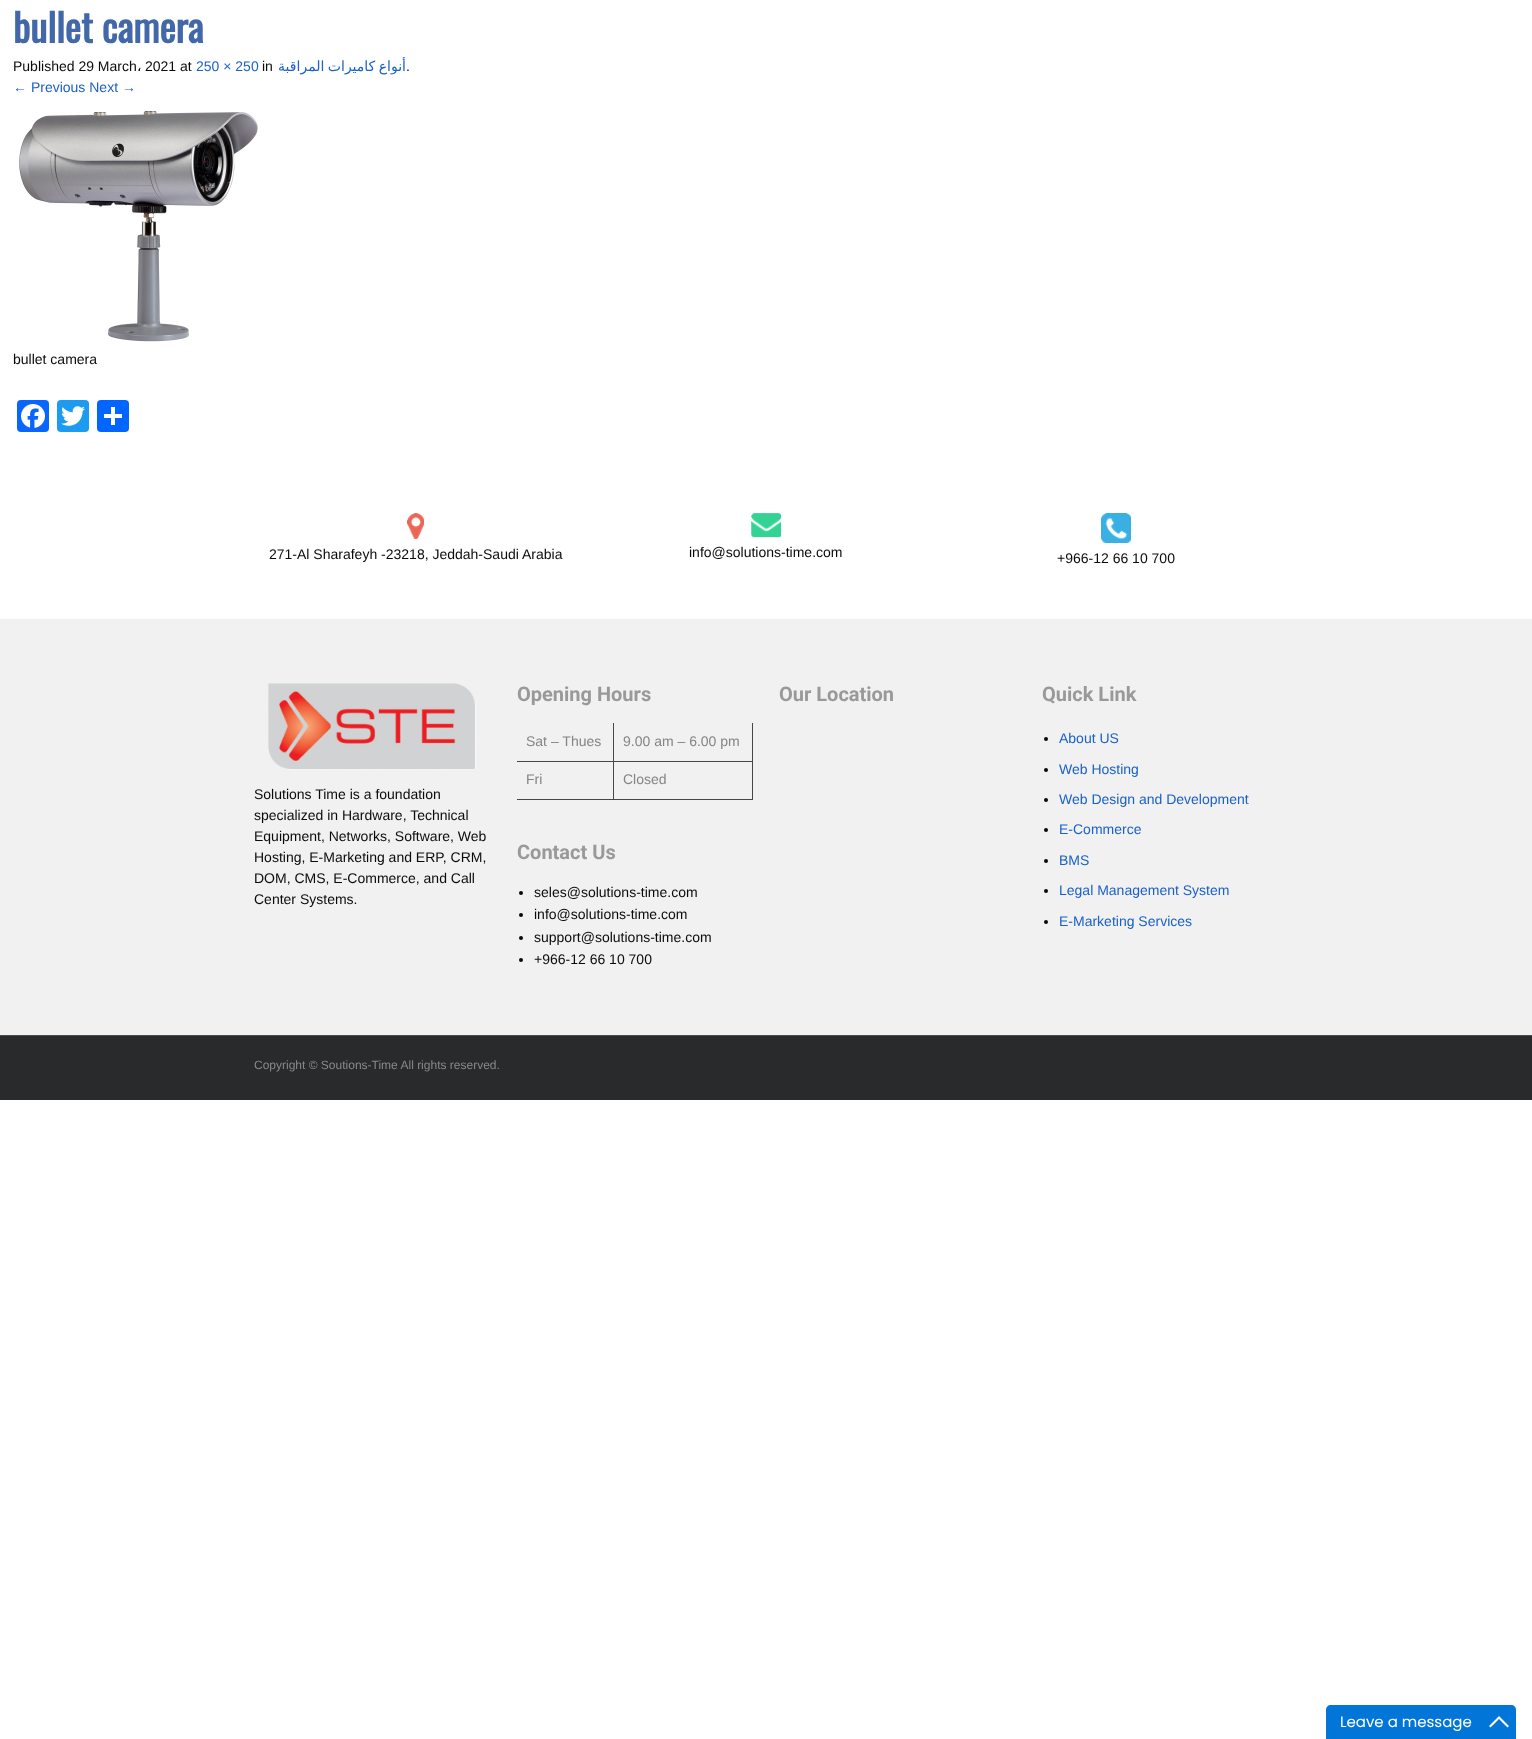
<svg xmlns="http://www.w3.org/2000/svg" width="1532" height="1739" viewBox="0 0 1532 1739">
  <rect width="100%" height="100%" fill="#fff"/>
  <image x="19" y="110" width="239" height="232" href="img/1.png"/>
  <rect x="17" y="400" width="32" height="32" rx="4" fill="#0866ff"/>
  <image x="21" y="404" width="24" height="24" href="img/2.png"/>
  <rect x="57" y="400" width="32" height="32" rx="4" fill="#1d9bf0"/>
  <image x="61" y="406" width="24" height="20" href="img/3.png"/>
  <rect x="97" y="400" width="32" height="32" rx="4" fill="#0166ff"/>
  <path d="M111 407h4v18H111z" fill="#fff"/>
  <path d="M104 414h18v4H104z" fill="#fff"/>
  <image x="407" y="513" width="17" height="26" href="img/4.png"/>
  <image x="751" y="513" width="30" height="24" href="img/5.png"/>
  <image x="1101" y="513" width="30" height="30" href="img/6.png"/>
  <path d="M0 619h1532v416H0z" fill="#f1f1f1"/>
  <path d="M752 723h1v77H752z" fill="#474747"/>
  <path d="M613 799h140v1H613z" fill="#474747"/>
  <path d="M613 761h1v39H613z" fill="#474747"/>
  <path d="M613 761h140v1H613z" fill="#474747"/>
  <path d="M613 723h1v39H613z" fill="#474747"/>
  <path d="M517 761h97v1H517z" fill="#474747"/>
  <path d="M517 799h97v1H517z" fill="#474747"/>
  <circle cx="521" cy="893" r="2" fill="#0a0a0a"/>
  <circle cx="521" cy="915" r="2" fill="#0a0a0a"/>
  <circle cx="521" cy="938" r="2" fill="#0a0a0a"/>
  <circle cx="521" cy="960" r="2" fill="#0a0a0a"/>
  <circle cx="1046" cy="739" r="2" fill="#0a0a0a"/>
  <circle cx="1046" cy="770" r="2" fill="#0a0a0a"/>
  <circle cx="1046" cy="800" r="2" fill="#0a0a0a"/>
  <circle cx="1046" cy="830" r="2" fill="#0a0a0a"/>
  <circle cx="1046" cy="861" r="2" fill="#0a0a0a"/>
  <circle cx="1046" cy="891" r="2" fill="#0a0a0a"/>
  <circle cx="1046" cy="922" r="2" fill="#0a0a0a"/>
  <image x="268" y="683" width="208" height="87" href="img/7.png"/>
  <path d="M0 1036h1532v64H0z" fill="#282a2b"/>
  <path d="M0 1035h1532v1H0z" fill="#4b4c4d"/>
  <path d="M1331 1705H1511C1514 1705 1516 1707 1516 1710V1739H1326V1710C1326 1707 1328 1705 1331 1705Z" fill="#0275d8"/>
  <path d="M1499 1716L1509 1726L1507.5 1727.5L1499 1719L1490.5 1727.5L1489 1726Z" fill="#fff"/>
  <text x="13" y="43" font-family="Oswald" font-size="38.5" font-weight="bold" fill="#4268aa">bullet camera</text>
  <text x="13" y="71" font-family="Liberation Sans" font-size="14" fill="#0a0a0a">Published 29 March</text>
  <text x="137" y="71" font-family="DejaVu Sans" font-size="14" fill="#0a0a0a">،</text>
  <text x="145" y="71" font-family="Liberation Sans" font-size="14" fill="#0a0a0a">2021 at</text>
  <text x="196" y="71" font-family="Liberation Sans" font-size="14" fill="#1a60c9">250 × 250</text>
  <text x="262" y="71" font-family="Liberation Sans" font-size="14" fill="#0a0a0a">in</text>
  <text x="406" y="71" word-spacing="-1" font-family="DejaVu Sans" font-size="14" direction="rtl" fill="#1a60c9">أنواع كاميرات المراقبة</text>
  <text x="406" y="71" font-family="Liberation Sans" font-size="14" fill="#0a0a0a">.</text>
  <text x="13" y="92" font-family="Liberation Sans" font-size="14" fill="#1a60c9">← Previous Next →</text>
  <g font-family="Liberation Sans" font-size="14" fill="#0a0a0a">
    <text x="13" y="364">bullet camera</text>
    <text x="269" y="559">271-Al Sharafeyh -23218, Jeddah-Saudi Arabia</text>
    <text x="689" y="557">info@solutions-time.com</text>
    <text x="1057" y="563">+966-12 66 10 700</text>
  </g>
  <text x="517" y="701" font-family="Roboto" font-size="20" font-weight="bold" fill="#999">Opening Hours</text>
  <g font-family="Liberation Sans" font-size="14" fill="#848484">
    <text x="526" y="746">Sat – Thues</text>
    <text x="623" y="746">9.00 am – 6.00 pm</text>
    <text x="526" y="784">Fri</text>
    <text x="623" y="784">Closed</text>
  </g>
  <text x="517" y="859" font-family="Roboto" font-size="20" font-weight="bold" fill="#999">Contact Us</text>
  <g font-family="Liberation Sans" font-size="14" fill="#0a0a0a">
    <text x="534" y="897">seles@solutions-time.com</text>
    <text x="534" y="919">info@solutions-time.com</text>
    <text x="534" y="942">support@solutions-time.com</text>
    <text x="534" y="964">+966-12 66 10 700</text>
  </g>
  <g font-family="Roboto" font-size="20" font-weight="bold" fill="#999">
    <text x="779" y="701">Our Location</text>
    <text x="1042" y="701">Quick Link</text>
  </g>
  <g font-family="Liberation Sans" font-size="14" fill="#1a60c9">
    <text x="1059" y="743">About US</text>
    <text x="1059" y="774">Web Hosting</text>
    <text x="1059" y="804">Web Design and Development</text>
    <text x="1059" y="834">E-Commerce</text>
    <text x="1059" y="865">BMS</text>
    <text x="1059" y="895">Legal Management System</text>
    <text x="1059" y="926">E-Marketing Services</text>
  </g>
  <g font-family="Liberation Sans" font-size="14" fill="#0a0a0a">
    <text x="254" y="799">Solutions Time is a foundation</text>
    <text x="254" y="820">specialized in Hardware, Technical</text>
    <text x="254" y="841">Equipment, Networks, Software, Web</text>
    <text x="254" y="862">Hosting, E-Marketing and ERP, CRM,</text>
    <text x="254" y="883">DOM, CMS, E-Commerce, and Call</text>
    <text x="254" y="904">Center Systems.</text>
  </g>
  <text x="254" y="1069" font-family="Liberation Sans" font-size="12" fill="#8c8989">Copyright © Soutions-Time All rights reserved.</text>
  <text x="1340" y="1727" font-family="Poppins" font-size="15" fill="#fff">Leave a message</text>
</svg>
